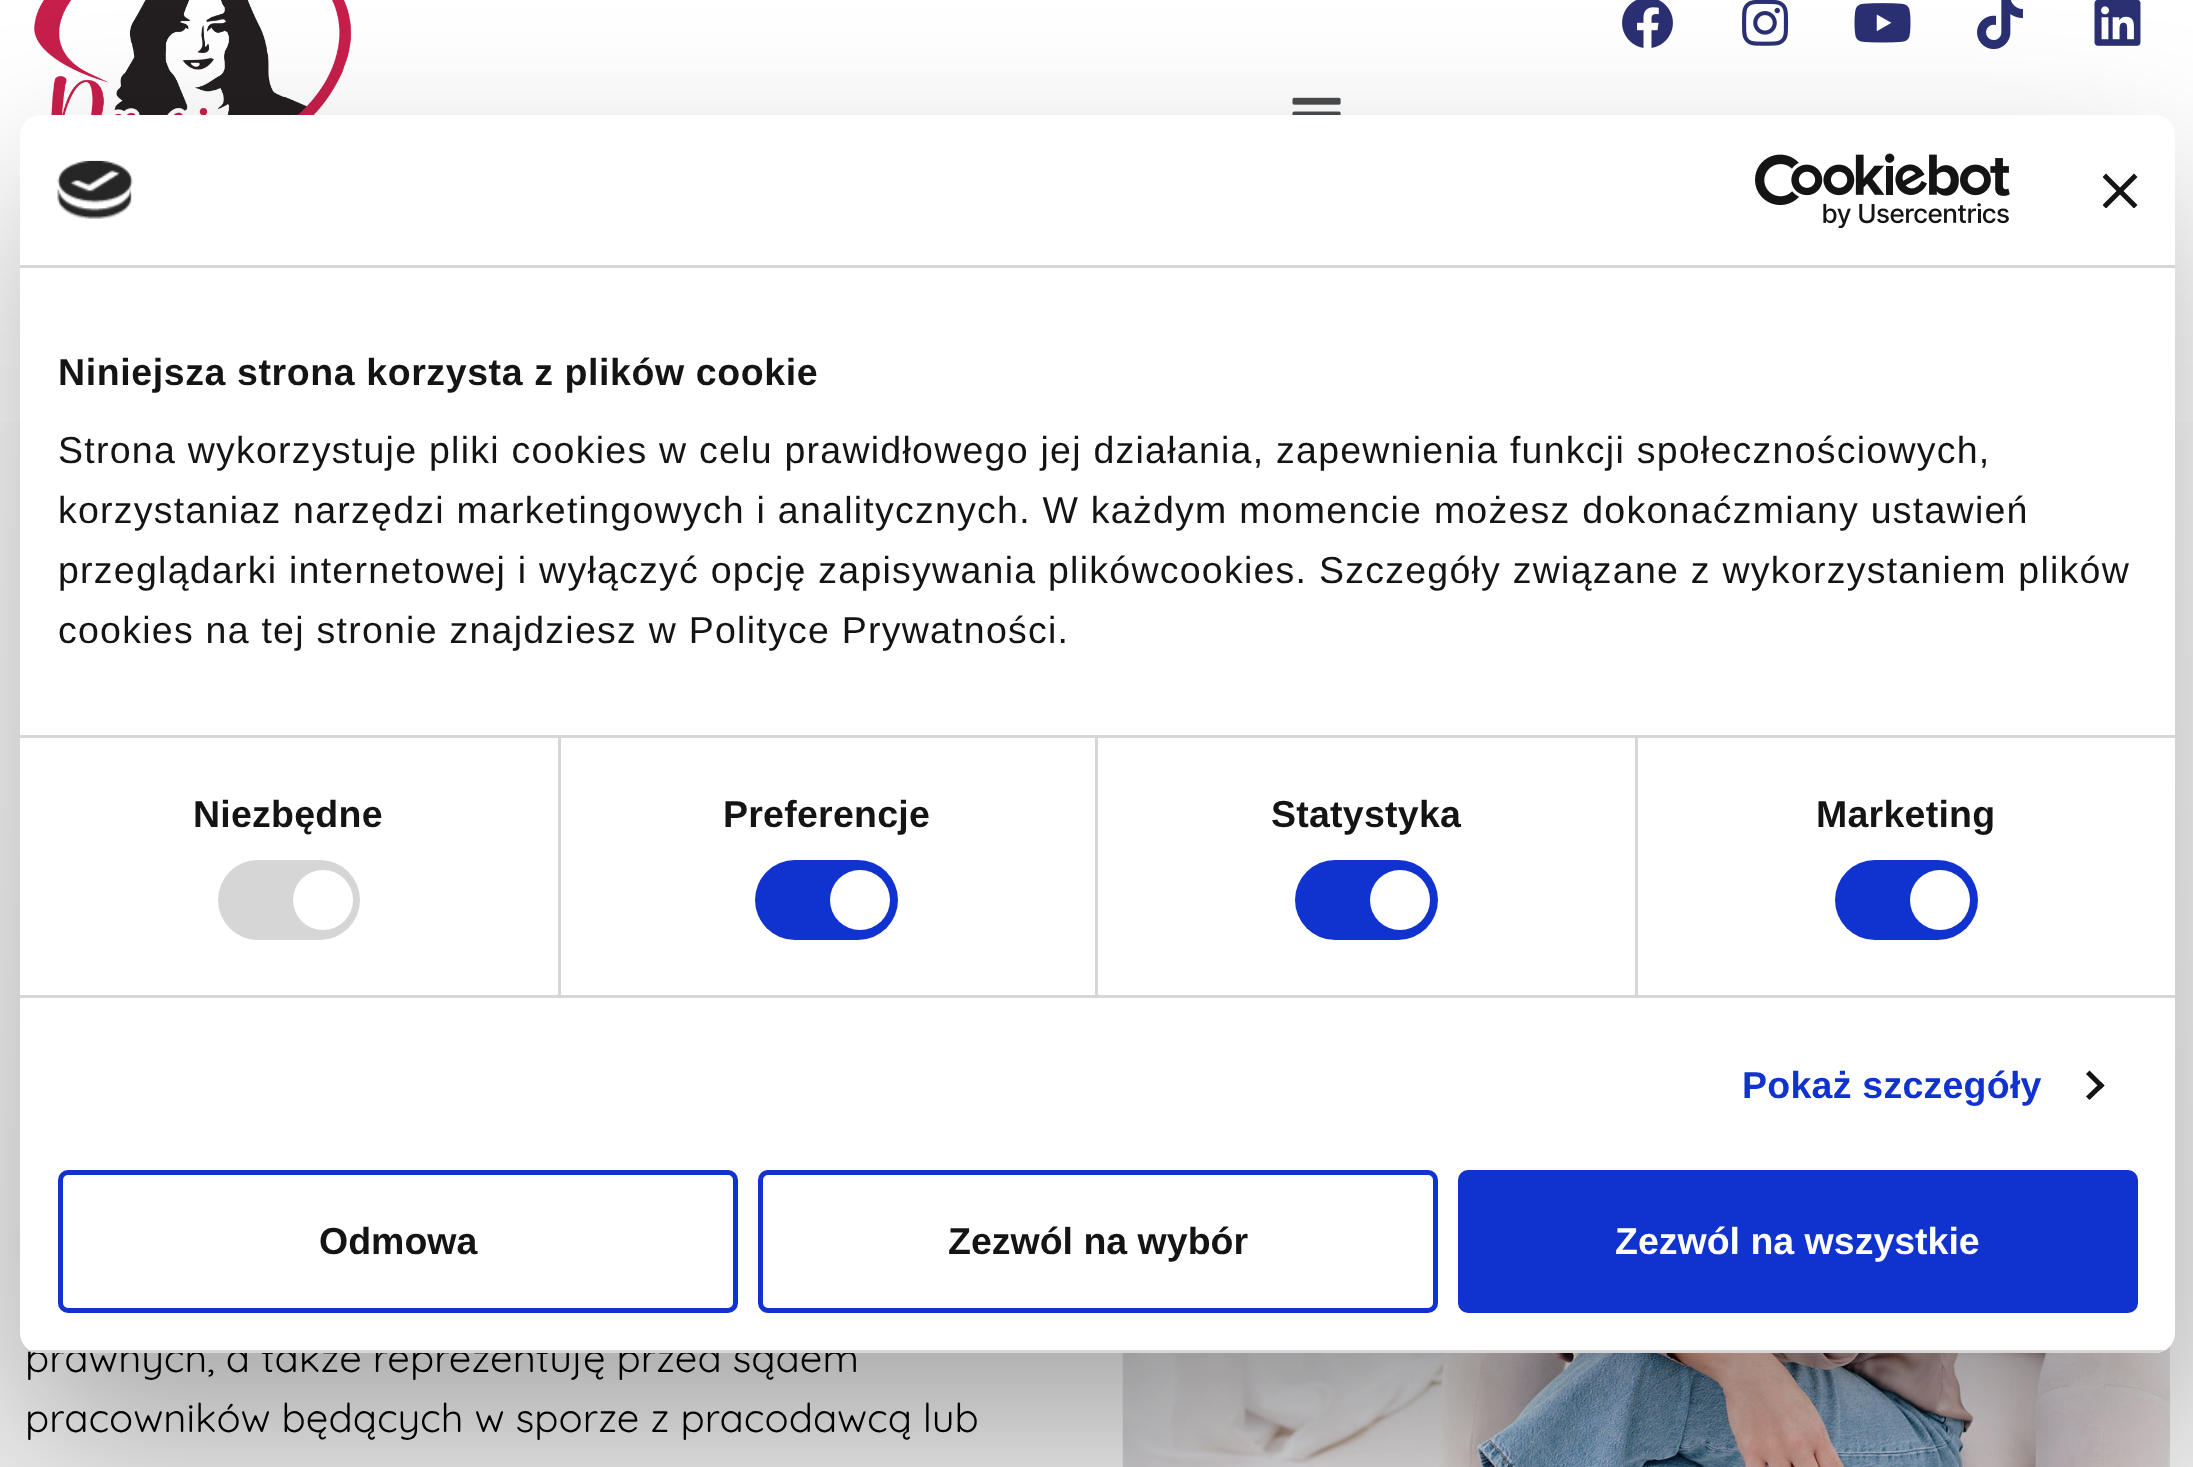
<svg xmlns="http://www.w3.org/2000/svg" width="2193" height="1467" viewBox="0 0 2193 1467">
  <defs>
    <linearGradient id="g1" gradientUnits="userSpaceOnUse" x1="1097" y1="235" x2="1098" y2="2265"><stop offset="0" stop-color="#fff"/><stop offset="1" stop-color="#e4e4e4"/></linearGradient>
    <clipPath id="clip1"><rect x="20" y="115" width="2155" height="1238" rx="20"/></clipPath>
    <clipPath id="clip2"><path d="M2103 173h35v35H2103z"/></clipPath>
  </defs>
  <rect width="100%" height="100%" fill="#fff"/>
  <image x="34" y="0" width="318" height="115" href="img/3.png"/>
  <image x="1622" y="0" width="51" height="48" href="img/4.png"/>
  <image x="1742" y="0" width="47" height="46" href="img/5.png"/>
  <image x="1854" y="3" width="57" height="40" href="img/6.png"/>
  <image x="1977" y="0" width="46" height="50" href="img/7.png"/>
  <image x="2094" y="0" width="47" height="46" href="img/8.png"/>
  <image x="1292" y="97" width="49" height="18" href="img/9.png"/>
  <path d="M0 422h2193v1045H0z" fill="url(#g1)"/>
  <image x="1122" y="1346" width="1048" height="121" href="img/10.png"/>
  <rect x="20" y="195" width="2155" height="1238" rx="20" fill="#0000004d" filter="blur(85px)"/>
  <text x="25" y="1372" font-family="Quicksand" font-size="40" fill="#000">prawnych, a także reprezentuję przed sądem</text>
  <rect x="20" y="115" width="2155" height="1238" rx="20" fill="#fff"/>
  <rect x="1460.5" y="1172.5" width="675" height="138" rx="7.5" fill="#1032cf" stroke="#1032cf" stroke-width="5"/>
  <text x="1615" y="1254" font-family="Liberation Sans" font-size="37.5" font-weight="bold" fill="#fff">Zezwól na wszystkie</text>
  <rect x="760.5" y="1172.5" width="675" height="138" rx="7.5" fill="none" stroke="#1032cf" stroke-width="5"/>
  <text x="948" y="1254" font-family="Liberation Sans" font-size="37.5" font-weight="bold" fill="#141414">Zezwól na wybór</text>
  <rect x="60.5" y="1172.5" width="675" height="138" rx="7.5" fill="none" stroke="#1032cf" stroke-width="5"/>
  <text x="319" y="1254" font-family="Liberation Sans" font-size="37.5" font-weight="bold" fill="#141414">Odmowa</text>
  <g clip-path="url(#clip1)">
    <path d="M29 1350h2137v3H29z" fill="#d6d6d6"/>
  </g>
  <path d="M2089.5 1070.5L2104.5 1085.5L2101 1089L2086 1074Z" fill="#141414"/>
  <path d="M2101 1082L2104.5 1085.5L2089.5 1100L2086 1096.5Z" fill="#141414"/>
  <rect x="1835" y="860" width="143" height="80" rx="40" fill="#1032cf"/>
  <circle cx="1940" cy="900" r="30" fill="#fff"/>
  <rect x="1295" y="860" width="143" height="80" rx="40" fill="#1032cf"/>
  <circle cx="1400" cy="900" r="30" fill="#fff"/>
  <rect x="755" y="860" width="143" height="80" rx="40" fill="#1032cf"/>
  <circle cx="860" cy="900" r="30" fill="#fff"/>
  <rect x="218" y="860" width="142" height="80" rx="40" fill="#d6d6d6"/>
  <circle cx="323" cy="900" r="30" fill="#fff"/>
  <g font-family="Liberation Sans" font-size="37.5" letter-spacing="1.25" fill="#141414">
    <text x="58" y="643">cookies na tej stronie znajdziesz w Polityce Prywatności.</text>
    <text x="58" y="583">przeglądarki internetowej i wyłączyć opcję zapisywania plikówcookies. Szczegóły związane z wykorzystaniem plików</text>
    <text x="58" y="523">korzystaniaz narzędzi marketingowych i analitycznych. W każdym momencie możesz dokonaćzmiany ustawień</text>
    <text x="58" y="463">Strona wykorzystuje pliki cookies w celu prawidłowego jej działania, zapewnienia funkcji społecznościowych,</text>
  </g>
  <text x="58" y="385" font-family="Liberation Sans" font-size="37.5" font-weight="bold" letter-spacing="0.6" fill="#141414">Niniejsza strona korzysta z plików cookie</text>
  <path d="M20 735h2155v3H20z" fill="#d6d6d6"/>
  <text x="1742" y="1098" font-family="Liberation Sans" font-size="37.5" font-weight="bold" letter-spacing="0.25" fill="#1032cf">Pokaż szczegóły</text>
  <g font-family="Liberation Sans" font-size="37.5" font-weight="bold" letter-spacing="0.25" fill="#141414">
    <text x="1816" y="827">Marketing</text>
    <text x="1271" y="827">Statystyka</text>
  </g>
  <path d="M1635 738h3v257H1635z" fill="#d6d6d6"/>
  <text x="723" y="827" font-family="Liberation Sans" font-size="37.5" font-weight="bold" letter-spacing="0.25" fill="#141414">Preferencje</text>
  <path d="M1095 738h3v257H1095z" fill="#d6d6d6"/>
  <text x="193" y="827" font-family="Liberation Sans" font-size="37.5" font-weight="bold" letter-spacing="0.25" fill="#141414">Niezbędne</text>
  <path d="M558 738h3v257H558z" fill="#d6d6d6"/>
  <path d="M20 995h2155v3H20z" fill="#d6d6d6"/>
  <g clip-path="url(#clip2)">
    <path d="M2137.5 177L2134 173.5L2120 187.5L2106 173.5L2102.5 177L2116.5 191L2102.5 205L2106 208.5L2120 194.5L2134 208.5L2137.5 205L2123.5 191Z" fill="#141414"/>
  </g>
  <image x="1755" y="153" width="255" height="75" href="img/2.png"/>
  <image x="57" y="160" width="76" height="59" href="img/1.png"/>
  <path d="M20 265h2155v3H20z" fill="#d6d6d6"/>
  <text x="25" y="1432" font-family="Quicksand" font-size="40" fill="#000">pracowników będących w sporze z pracodawcą lub</text>
</svg>
